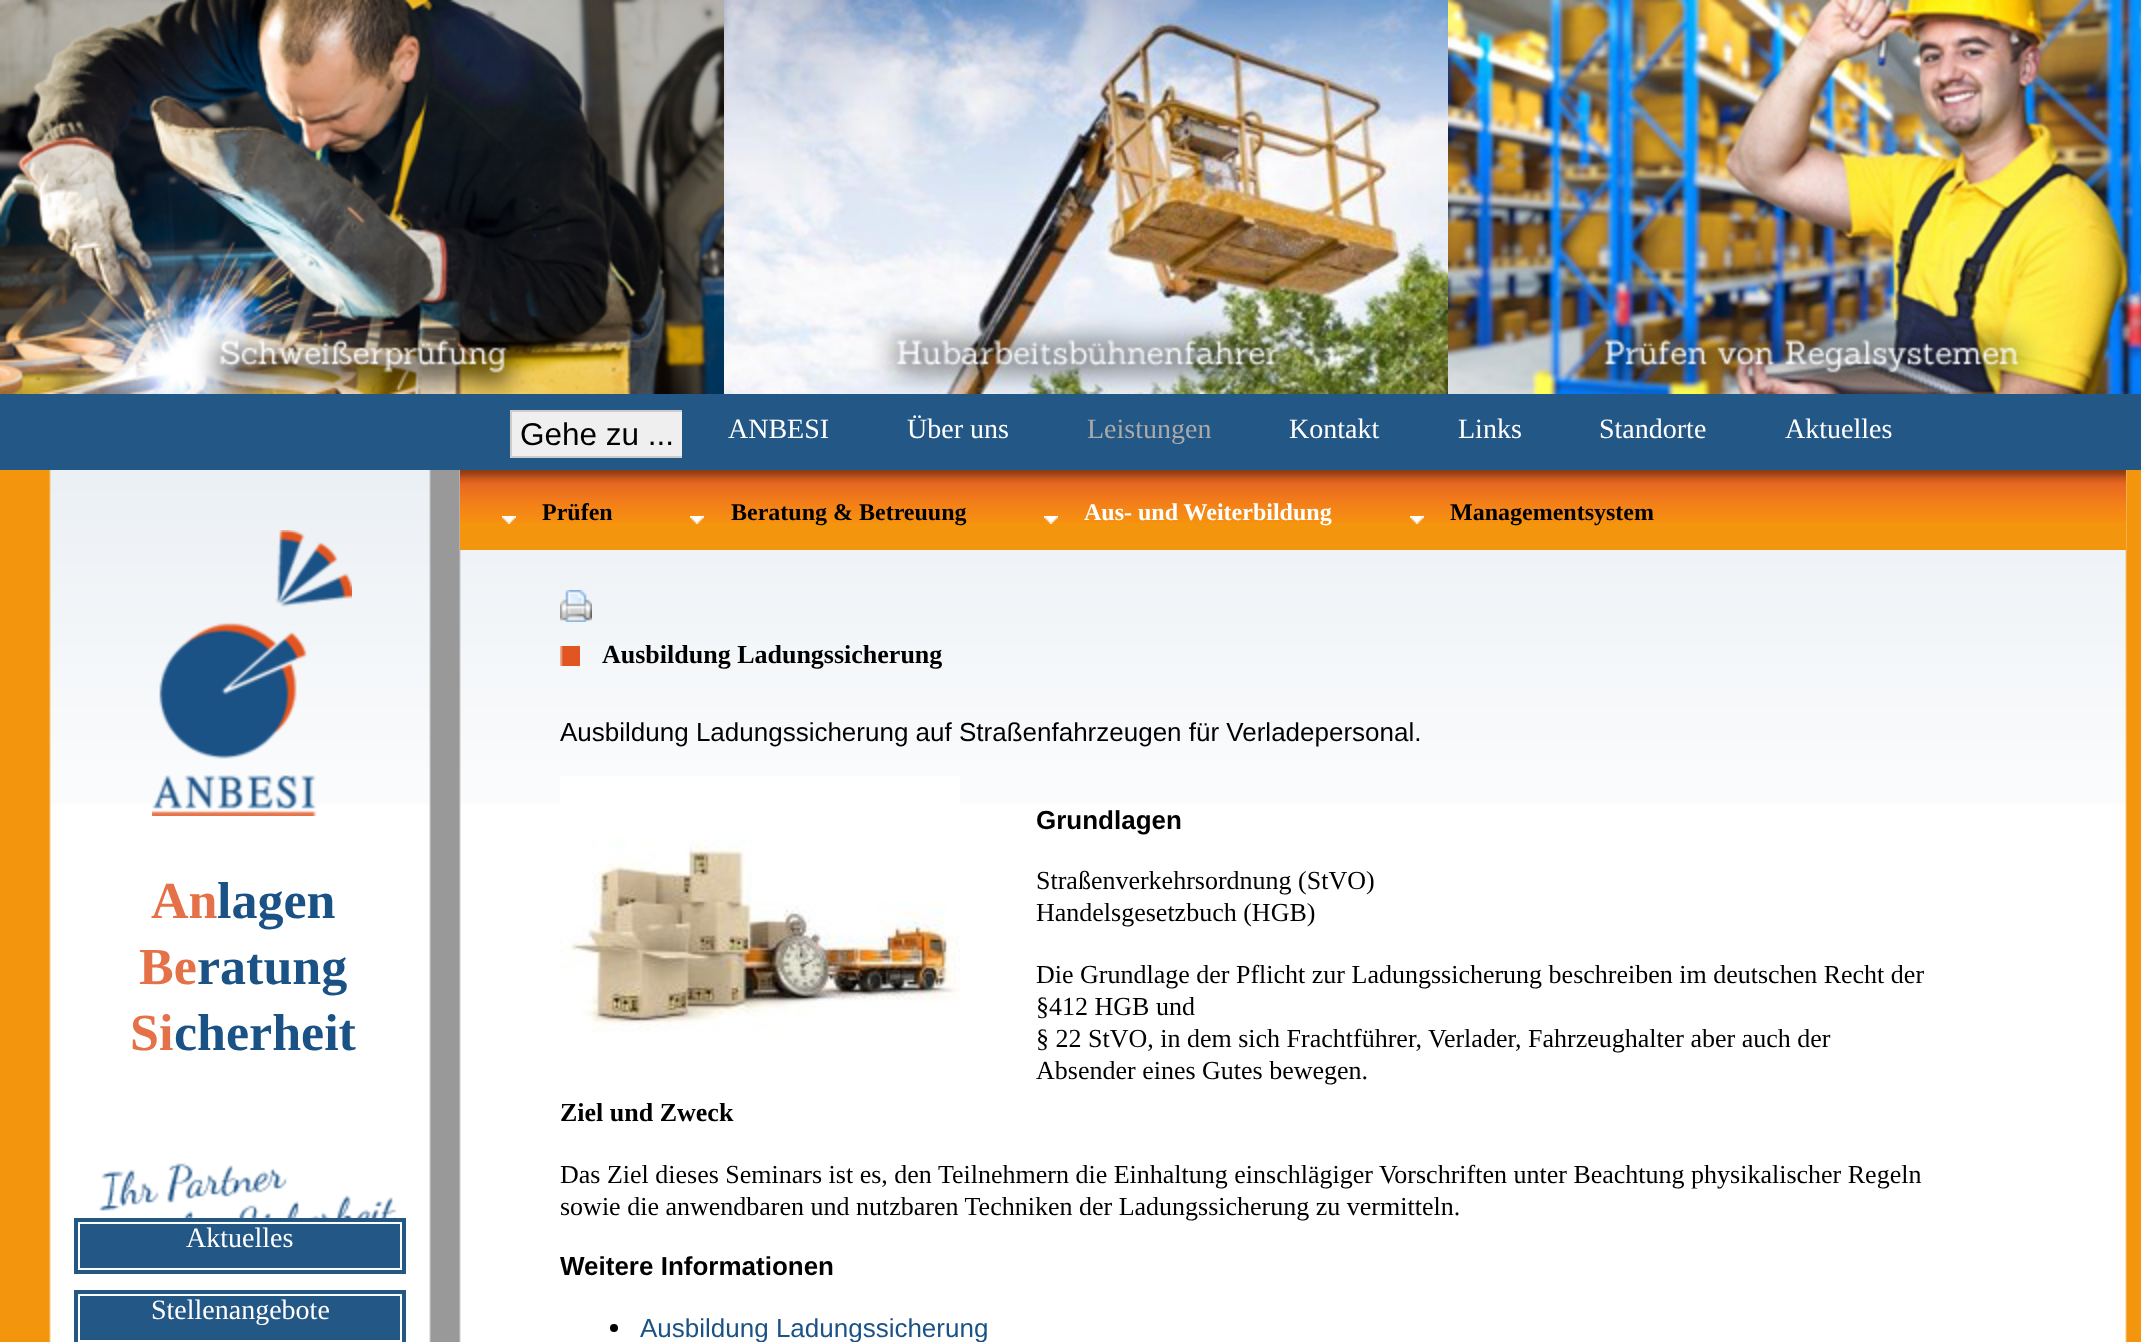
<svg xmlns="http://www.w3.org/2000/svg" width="2141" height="1342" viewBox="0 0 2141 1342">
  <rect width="100%" height="100%" fill="#fff"/>
  <image x="49" y="470" width="2078" height="335" href="img/1.png"/>
  <image x="0" y="470" width="2141" height="872" href="img/2.png"/>
  <path d="M0 394h2141v76H0z" fill="#235786"/>
  <image x="0" y="0" width="724" height="394" href="img/3.png"/>
  <image x="724" y="0" width="724" height="394" href="img/4.png"/>
  <image x="1448" y="0" width="693" height="394" href="img/5.png"/>
  <path d="M460 523h1666v27H460z" fill="#f3950d"/>
  <image x="460" y="470" width="1666" height="53" href="img/6.png"/>
  <image x="502" y="516" width="14" height="8" href="img/7.png"/>
  <image x="690" y="516" width="14" height="8" href="img/7.png"/>
  <image x="1044" y="516" width="14" height="8" href="img/7.png"/>
  <image x="1410" y="516" width="14" height="8" href="img/7.png"/>
  <path d="M512 412h170v44H512z" fill="#efefef"/>
  <path d="M511 411h338v46H511z" fill="none" stroke="#ccc" stroke-width="2"/>
  <path d="M686 410h164v48H686z" fill="#235786"/>
  <path d="M684 396h184v68H684z" fill="none" stroke="#235786" stroke-width="4"/>
  <image x="152" y="530" width="200" height="286" href="img/8.png"/>
  <image x="99" y="1163" width="298" height="55" href="img/9.png"/>
  <image x="560" y="590" width="32" height="32" href="img/10.png"/>
  <image x="560" y="646" width="20" height="20" href="img/11.png"/>
  <image x="560" y="776" width="400" height="256" href="img/12.png"/>
  <circle cx="614" cy="1328" r="4" fill="#000"/>
  <path d="M80 1224h320v44H80z" fill="#235786"/>
  <path d="M76 1220h328v52H76z" fill="none" stroke="#235786" stroke-width="4"/>
  <path d="M80 1296h320v44H80z" fill="#235786"/>
  <path d="M76 1292h328v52H76z" fill="none" stroke="#235786" stroke-width="4"/>
  <g font-family="Liberation Serif" font-size="28" fill="#fff">
    <text x="907" y="438">Über uns</text>
    <text x="1289" y="438">Kontakt</text>
    <text x="1458" y="438">Links</text>
    <text x="1599" y="438">Standorte</text>
    <text x="1785" y="438">Aktuelles</text>
  </g>
  <text x="1087" y="438" font-family="Liberation Serif" font-size="28" fill="#aaa">Leistungen</text>
  <g font-family="Liberation Serif" font-size="24" font-weight="bold" fill="#000">
    <text x="542" y="520">Prüfen</text>
    <text x="731" y="520">Beratung &amp; Betreuung</text>
  </g>
  <text x="1084" y="520" font-family="Liberation Serif" font-size="24" font-weight="bold" fill="#fff">Aus- und Weiterbildung</text>
  <text x="1450" y="520" font-family="Liberation Serif" font-size="24" font-weight="bold" fill="#000">Managementsystem</text>
  <text x="728" y="438" font-family="Liberation Serif" font-size="28" fill="#fff">ANBESI</text>
  <text x="520" y="445" font-family="Liberation Sans" font-size="31.5" fill="#000">Gehe zu ...</text>
  <text x="151" y="918" font-family="Liberation Serif" font-size="52" font-weight="bold" fill="#e47147">An</text>
  <text x="217" y="918" font-family="Liberation Serif" font-size="52" font-weight="bold" fill="#1b5286">lagen</text>
  <text x="139" y="984" font-family="Liberation Serif" font-size="52" font-weight="bold" fill="#e47147">Be</text>
  <text x="197" y="984" font-family="Liberation Serif" font-size="52" font-weight="bold" fill="#1b5286">ratung</text>
  <text x="130" y="1050" font-family="Liberation Serif" font-size="52" font-weight="bold" fill="#e47147">Si</text>
  <text x="174" y="1050" font-family="Liberation Serif" font-size="52" font-weight="bold" fill="#1b5286">cherheit</text>
  <text x="602" y="663" font-family="Liberation Serif" font-size="26" font-weight="bold" fill="#000">Ausbildung Ladungssicherung</text>
  <text x="560" y="741" font-family="Liberation Sans" font-size="26" fill="#000">Ausbildung Ladungssicherung auf Straßenfahrzeugen für Verladepersonal.</text>
  <text x="1036" y="829" font-family="Liberation Sans" font-size="26" font-weight="bold" fill="#000">Grundlagen</text>
  <g font-family="Liberation Serif" font-size="26" fill="#000">
    <text x="1036" y="889">Straßenverkehrsordnung (StVO)</text>
    <text x="1036" y="921">Handelsgesetzbuch (HGB)</text>
    <text x="1036" y="983">Die Grundlage der Pflicht zur Ladungssicherung beschreiben im deutschen Recht der</text>
    <text x="1036" y="1015">§412 HGB und</text>
    <text x="1036" y="1047">§ 22 StVO, in dem sich Frachtführer, Verlader, Fahrzeughalter aber auch der</text>
    <text x="1036" y="1079">Absender eines Gutes bewegen.</text>
  </g>
  <text x="560" y="1121" font-family="Liberation Serif" font-size="26" font-weight="bold" fill="#000">Ziel und Zweck</text>
  <g font-family="Liberation Serif" font-size="26" fill="#000">
    <text x="560" y="1183">Das Ziel dieses Seminars ist es, den Teilnehmern die Einhaltung einschlägiger Vorschriften unter Beachtung physikalischer Regeln</text>
    <text x="560" y="1215">sowie die anwendbaren und nutzbaren Techniken der Ladungssicherung zu vermitteln.</text>
  </g>
  <text x="560" y="1275" font-family="Liberation Sans" font-size="26" font-weight="bold" fill="#000">Weitere Informationen</text>
  <text x="640" y="1337" font-family="Liberation Sans" font-size="26" fill="#1b5286">Ausbildung Ladungssicherung</text>
  <g font-family="Liberation Serif" font-size="28" fill="#fff">
    <text x="186" y="1247">Aktuelles</text>
    <text x="151" y="1319">Stellenangebote</text>
  </g>
</svg>
